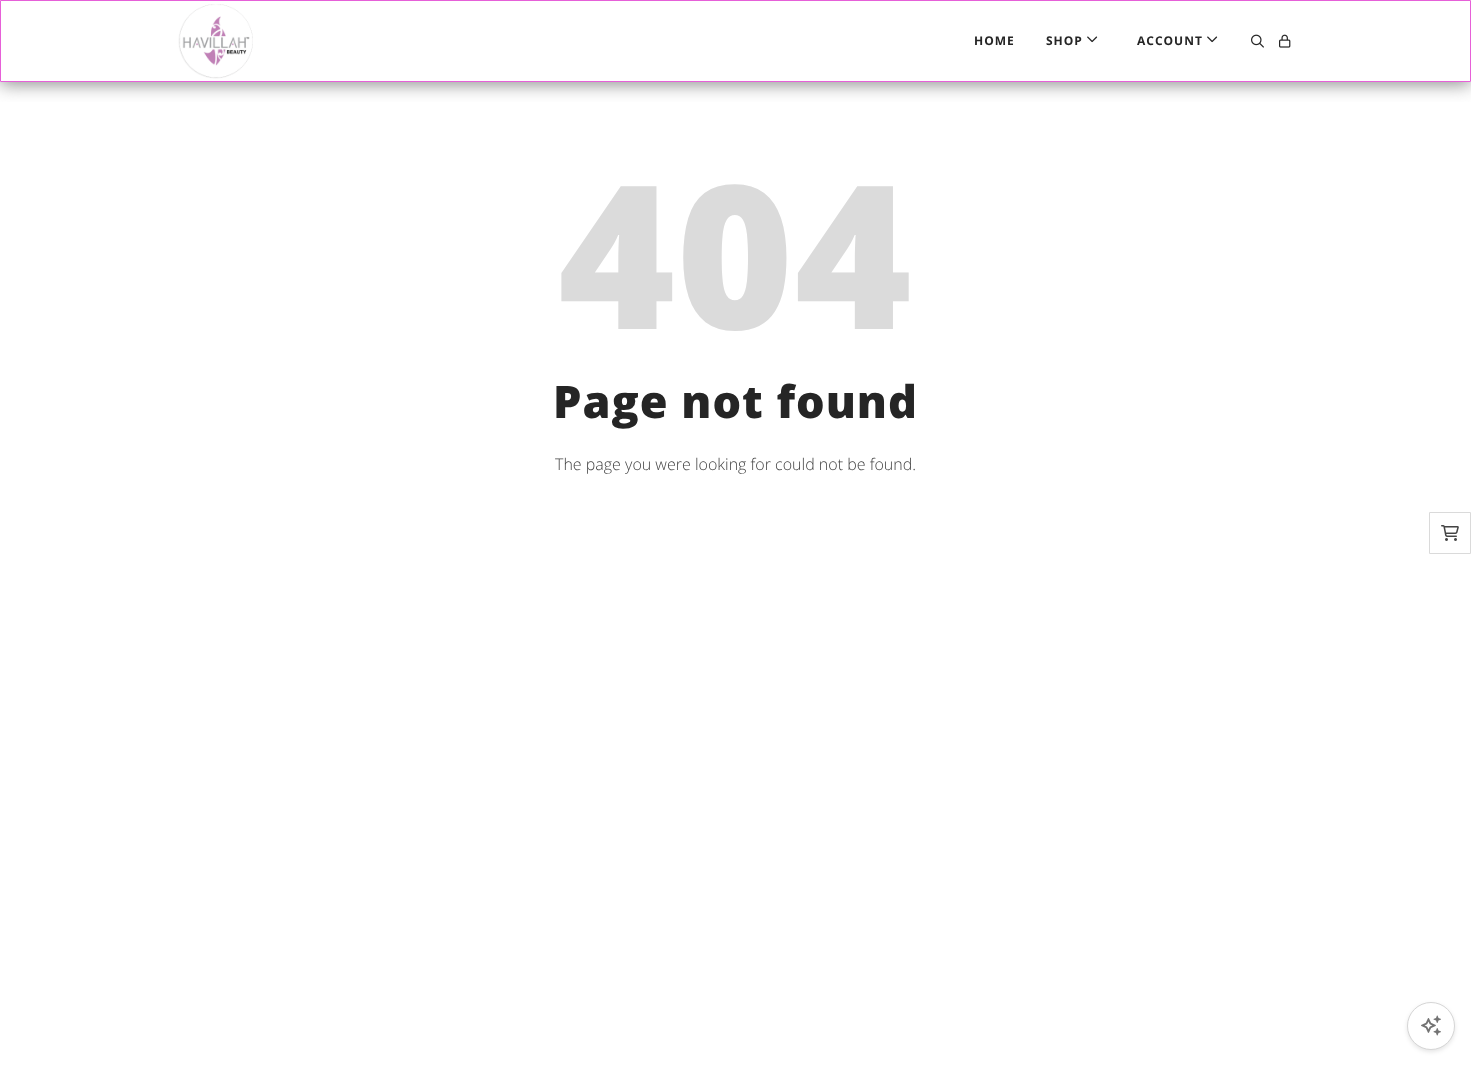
<svg xmlns="http://www.w3.org/2000/svg" width="1471" height="1066" viewBox="0 0 1471 1066">
  <defs>
    <clipPath id="clip1"><path d="M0 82h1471v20H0z"/></clipPath>
  </defs>
  <rect width="100%" height="100%" fill="#fff"/>
  <g clip-path="url(#clip1)">
    <path d="M0 2h1471v82H0z" fill="#888" filter="blur(9px)"/>
  </g>
  <path d="M0.5 0.5h1470v81H0.5z" fill="none" stroke="#e660d8"/>
  <image x="178" y="4" width="75" height="75" href="img/1.png"/>
  <image x="1087" y="36" width="11" height="7" href="img/2.png"/>
  <image x="1207" y="36" width="11" height="7" href="img/2.png"/>
  <image x="1251" y="34" width="13" height="14" href="img/3.png"/>
  <image x="1279" y="34" width="12" height="14" href="img/4.png"/>
  <path d="M1429.5 512.5h41v41H1429.5z" fill="none" stroke="#dadada"/>
  <image x="1441" y="525" width="18" height="16" href="img/5.png"/>
  <rect x="1407" y="1004" width="48" height="48" rx="24" fill="#0000001a" filter="blur(2px)"/>
  <circle cx="1431" cy="1026" r="23.5" fill="#fff" stroke="#d6d6d6"/>
  <image x="1421" y="1015" width="20" height="21" href="img/6.png"/>
  <g font-family="Open Sans" font-size="12" font-weight="bold" letter-spacing="1" fill="#252525">
    <text x="974" y="45">HOME</text>
    <text x="1046" y="45">SHOP</text>
    <text x="1137" y="45">ACCOUNT</text>
  </g>
  <text x="558" y="329" font-family="Open Sans" font-size="200" font-weight="800" letter-spacing="1" fill="#dbdbdb">404</text>
  <text x="553" y="418" font-family="Open Sans" font-size="45" font-weight="800" letter-spacing="1" fill="#252525">Page not found</text>
  <text x="555" y="470" font-family="Open Sans" font-size="16" font-weight="300" fill="#444">The page you were looking for could not be found.</text>
</svg>
